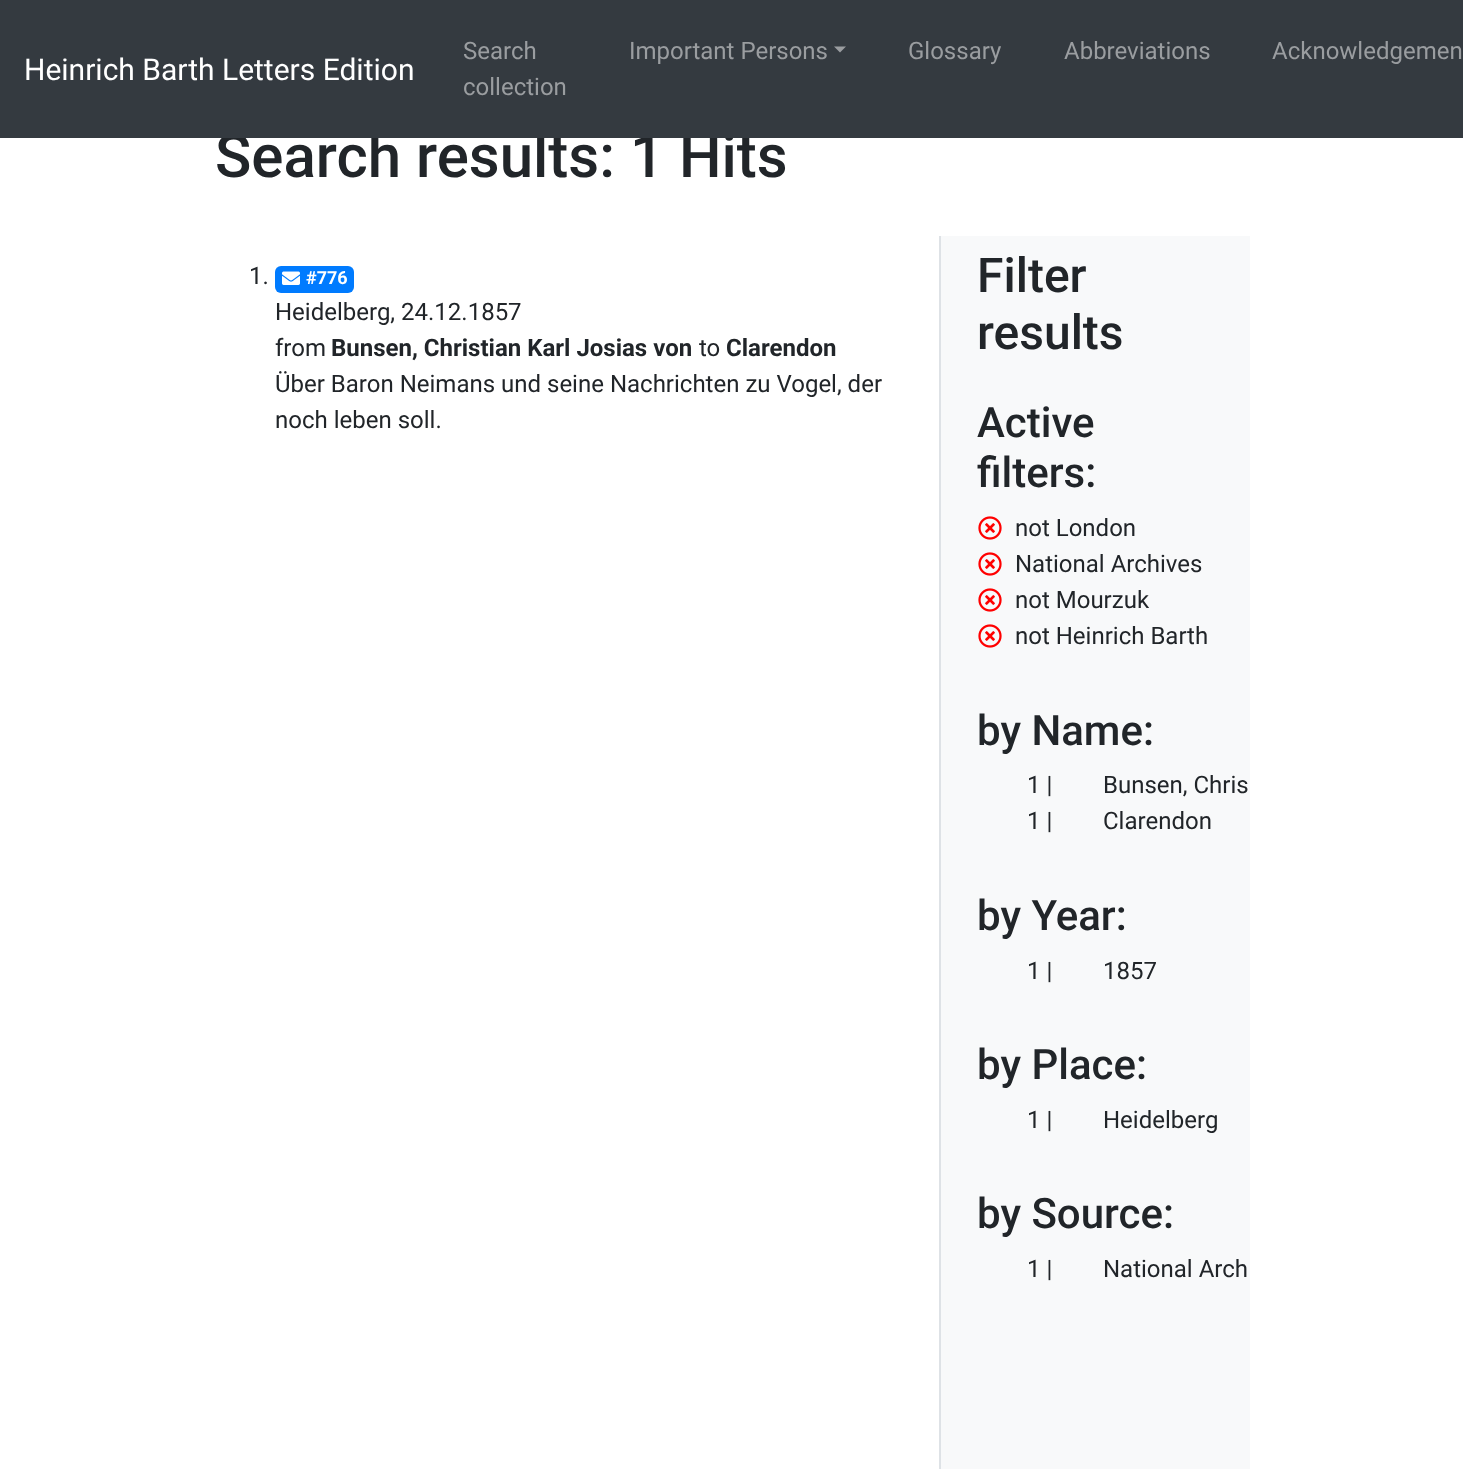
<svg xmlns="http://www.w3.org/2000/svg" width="1463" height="1469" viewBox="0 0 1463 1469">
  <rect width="100%" height="100%" fill="#fff"/>
  <rect x="275" y="266" width="79" height="27" rx="6" fill="#007bff"/>
  <image x="282" y="271" width="18" height="14" href="img/1.png"/>
  <path d="M941 236h309v1233H941z" fill="#f8f9fa"/>
  <path d="M939 236h2v1233H939z" fill="#dee2e6"/>
  <image x="978" y="516" width="24" height="24" href="img/2.png"/>
  <image x="978" y="552" width="24" height="24" href="img/2.png"/>
  <image x="978" y="588" width="24" height="24" href="img/2.png"/>
  <image x="978" y="624" width="24" height="24" href="img/2.png"/>
  <text x="215" y="177" font-family="Roboto" font-size="60" font-weight="500" fill="#212529">Search results: 1 Hits</text>
  <path d="M0 0h1463v138H0z" fill="#343a40"/>
  <path d="M834 46.5H846L840 52.5Z" fill="#9a9da0"/>
  <g font-family="Roboto" font-size="24" fill="#9a9da0">
    <text x="629" y="59">Important Persons</text>
    <text x="1272" y="59">Acknowledgemen</text>
    <text x="1064" y="59">Abbreviations</text>
    <text x="908" y="59">Glossary</text>
    <text x="463" y="95">collection</text>
    <text x="463" y="59">Search</text>
  </g>
  <text x="24" y="80" font-family="Roboto" font-size="30" fill="#fff">Heinrich Barth Letters Edition</text>
  <text x="249" y="284" font-family="Roboto" font-size="24" fill="#212529">1.</text>
  <text x="306" y="284" font-family="Roboto" font-size="18" font-weight="bold" fill="#fff">#776</text>
  <g font-family="Roboto" font-size="24" fill="#212529">
    <text x="275" y="320">Heidelberg, 24.12.1857</text>
    <text x="275" y="356">from</text>
  </g>
  <text x="331" y="356" font-family="Roboto" font-size="24" font-weight="bold" fill="#212529">Bunsen, Christian Karl Josias von</text>
  <text x="699" y="356" font-family="Roboto" font-size="24" fill="#212529">to</text>
  <text x="726" y="356" font-family="Roboto" font-size="24" font-weight="bold" fill="#212529">Clarendon</text>
  <g font-family="Roboto" font-size="24" fill="#212529">
    <text x="275" y="392">Über Baron Neimans und seine Nachrichten zu Vogel, der</text>
    <text x="275" y="428">noch leben soll.</text>
  </g>
  <g font-family="Roboto" font-size="48" font-weight="500" fill="#212529">
    <text x="977" y="292">Filter</text>
    <text x="977" y="349">results</text>
  </g>
  <g font-family="Roboto" font-size="42" font-weight="500" fill="#212529">
    <text x="977" y="437">Active</text>
    <text x="977" y="487">filters:</text>
  </g>
  <g font-family="Roboto" font-size="24" fill="#212529">
    <text x="1015" y="536">not London</text>
    <text x="1015" y="572">National Archives</text>
    <text x="1015" y="608">not Mourzuk</text>
    <text x="1015" y="644">not Heinrich Barth</text>
  </g>
  <text x="977" y="745" font-family="Roboto" font-size="42" font-weight="500" fill="#212529">by Name:</text>
  <g font-family="Roboto" font-size="24" fill="#212529">
    <text x="1027" y="793">1 |</text>
    <text x="1103" y="793">Bunsen, Chris</text>
    <text x="1027" y="829">1 |</text>
    <text x="1103" y="829">Clarendon</text>
  </g>
  <text x="977" y="930" font-family="Roboto" font-size="42" font-weight="500" fill="#212529">by Year:</text>
  <g font-family="Roboto" font-size="24" fill="#212529">
    <text x="1027" y="979">1 |</text>
    <text x="1103" y="979">1857</text>
  </g>
  <text x="977" y="1079" font-family="Roboto" font-size="42" font-weight="500" fill="#212529">by Place:</text>
  <g font-family="Roboto" font-size="24" fill="#212529">
    <text x="1027" y="1128">1 |</text>
    <text x="1103" y="1128">Heidelberg</text>
  </g>
  <text x="977" y="1228" font-family="Roboto" font-size="42" font-weight="500" fill="#212529">by Source:</text>
  <g font-family="Roboto" font-size="24" fill="#212529">
    <text x="1027" y="1277">1 |</text>
    <text x="1103" y="1277">National Arch</text>
  </g>
</svg>
